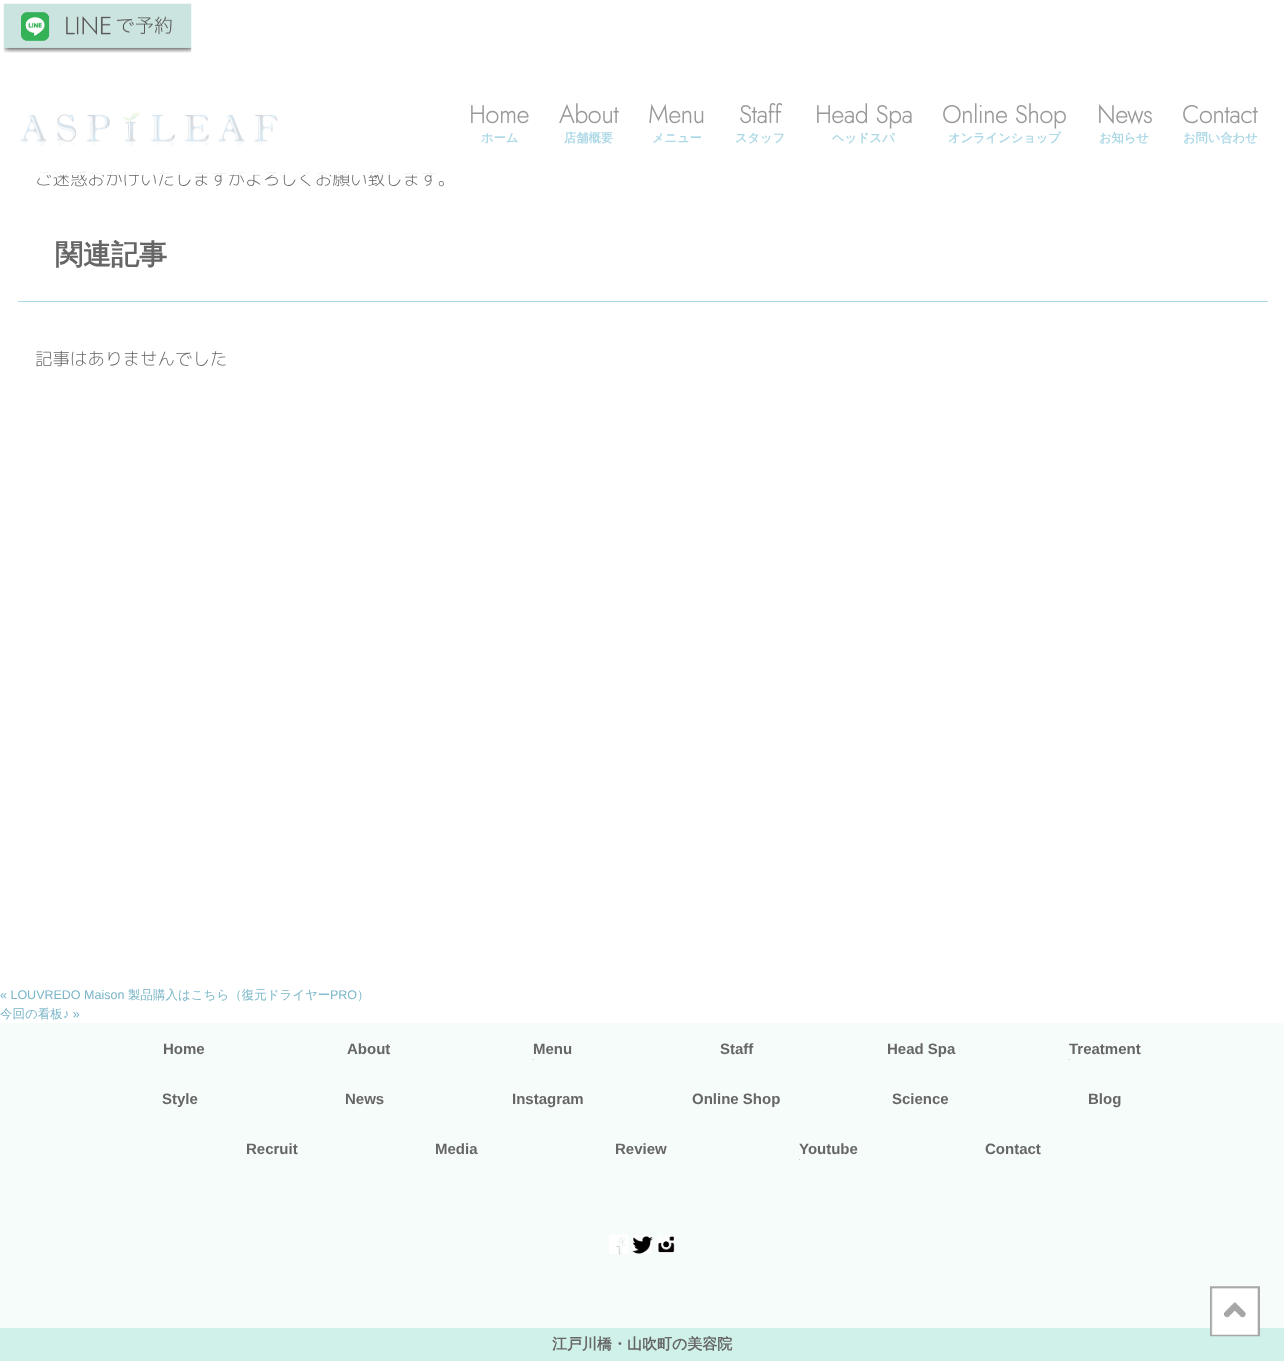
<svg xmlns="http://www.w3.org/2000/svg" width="1284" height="1361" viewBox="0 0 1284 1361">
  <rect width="100%" height="100%" fill="#fff"/>
  <image x="3" y="3" width="189" height="50" href="img/1.png"/>
  <image x="20" y="112" width="258" height="34" href="img/2.png"/>
  <path d="M18 301h1250v1H18z" fill="#add8e6"/>
  <path d="M0 1023h1284v305H0z" fill="#f6fcfa"/>
  <path d="M533 1059h1v1H533z" fill="#ccc"/>
  <path d="M1069 1059h1v1H1069z" fill="#ccc"/>
  <path d="M799 1159h1v1H799z" fill="#ccc"/>
  <image x="609" y="1234" width="20" height="21" href="img/3.png"/>
  <image x="632" y="1235" width="21" height="19" href="img/4.png"/>
  <image x="657" y="1235" width="18" height="19" href="img/5.png"/>
  <path d="M0 1328h1284v33H0z" fill="#d0f1ea"/>
  <image x="1210" y="1286" width="50" height="51" href="img/6.png"/>
  <text x="469" y="123" font-family="Jost" font-size="24.5" font-weight="bold" fill="#999">Home</text>
  <text x="481" y="142" font-family="WenQuanYi Zen Hei" font-size="12.25" font-weight="bold" fill="#add8e6">ホーム</text>
  <text x="559" y="123" font-family="Jost" font-size="24.5" font-weight="bold" fill="#999">About</text>
  <text x="564" y="142" font-family="WenQuanYi Zen Hei" font-size="12.25" font-weight="bold" fill="#add8e6">店舗概要</text>
  <text x="648" y="123" font-family="Jost" font-size="24.5" font-weight="bold" fill="#999">Menu</text>
  <text x="652" y="142" font-family="WenQuanYi Zen Hei" font-size="12.25" font-weight="bold" fill="#add8e6">メニュー</text>
  <text x="739" y="123" font-family="Jost" font-size="24.5" font-weight="bold" fill="#999">Staff</text>
  <text x="735" y="142" font-family="WenQuanYi Zen Hei" font-size="12.25" font-weight="bold" fill="#add8e6">スタッフ</text>
  <text x="815" y="123" font-family="Jost" font-size="24.5" font-weight="bold" fill="#999">Head Spa</text>
  <text x="832" y="142" font-family="WenQuanYi Zen Hei" font-size="12.25" font-weight="bold" fill="#add8e6">ヘッドスパ</text>
  <text x="942" y="123" font-family="Jost" font-size="24.5" font-weight="bold" fill="#999">Online Shop</text>
  <text x="948" y="142" font-family="WenQuanYi Zen Hei" font-size="12.25" font-weight="bold" fill="#add8e6">オンラインショップ</text>
  <text x="1097" y="123" font-family="Jost" font-size="24.5" font-weight="bold" fill="#999">News</text>
  <text x="1099" y="142" font-family="WenQuanYi Zen Hei" font-size="12.25" font-weight="bold" fill="#add8e6">お知らせ</text>
  <text x="1182" y="123" font-family="Jost" font-size="24.5" font-weight="bold" fill="#999">Contact</text>
  <text x="1183" y="142" font-family="WenQuanYi Zen Hei" font-size="12.25" font-weight="bold" fill="#add8e6">お問い合わせ</text>
  <text x="35" y="185" font-family="'Rounded Mplus 1c'" font-size="17.5" font-weight="300" fill="#666">ご迷惑おかけいたしますがよろしくお願い致します。</text>
  <path d="M38 170h399v5H38z" fill="#ffffffe3"/>
  <text x="55" y="264" font-family="WenQuanYi Zen Hei" font-size="28" font-weight="bold" fill="#666">関連記事</text>
  <text x="35" y="365" font-family="'Rounded Mplus 1c'" font-size="17.5" font-weight="300" fill="#666">記事はありませんでした</text>
  <text x="0" y="999" font-family="Liberation Sans" font-size="12.5" fill="#79b5c8">« LOUVREDO Maison</text>
  <text x="128" y="999" font-family="WenQuanYi Zen Hei" font-size="12.5" font-weight="500" fill="#79b5c8">製品購入はこちら（復元ドライヤー</text>
  <text x="330" y="999" font-family="Liberation Sans" font-size="12.5" fill="#79b5c8">PRO</text>
  <g font-family="WenQuanYi Zen Hei" font-size="12.5" font-weight="500" fill="#79b5c8">
    <text x="357" y="999">）</text>
    <text x="0" y="1018">今回の看板</text>
  </g>
  <text x="63" y="1018" font-family="Liberation Sans" font-size="12.5" fill="#79b5c8">♪ »</text>
  <g font-family="Liberation Sans" font-size="15" font-weight="bold" fill="#666">
    <text x="163" y="1054">Home</text>
    <text x="347" y="1054">About</text>
    <text x="533" y="1054">Menu</text>
    <text x="720" y="1054">Staff</text>
    <text x="887" y="1054">Head Spa</text>
    <text x="1069" y="1054">Treatment</text>
    <text x="162" y="1104">Style</text>
    <text x="345" y="1104">News</text>
    <text x="512" y="1104">Instagram</text>
    <text x="692" y="1104">Online Shop</text>
    <text x="892" y="1104">Science</text>
    <text x="1088" y="1104">Blog</text>
    <text x="246" y="1154">Recruit</text>
    <text x="435" y="1154">Media</text>
    <text x="615" y="1154">Review</text>
    <text x="799" y="1154">Youtube</text>
    <text x="985" y="1154">Contact</text>
  </g>
  <text x="552" y="1349" font-family="WenQuanYi Zen Hei" font-size="15" font-weight="bold" fill="#666">江戸川橋・山吹町の美容院</text>
</svg>
